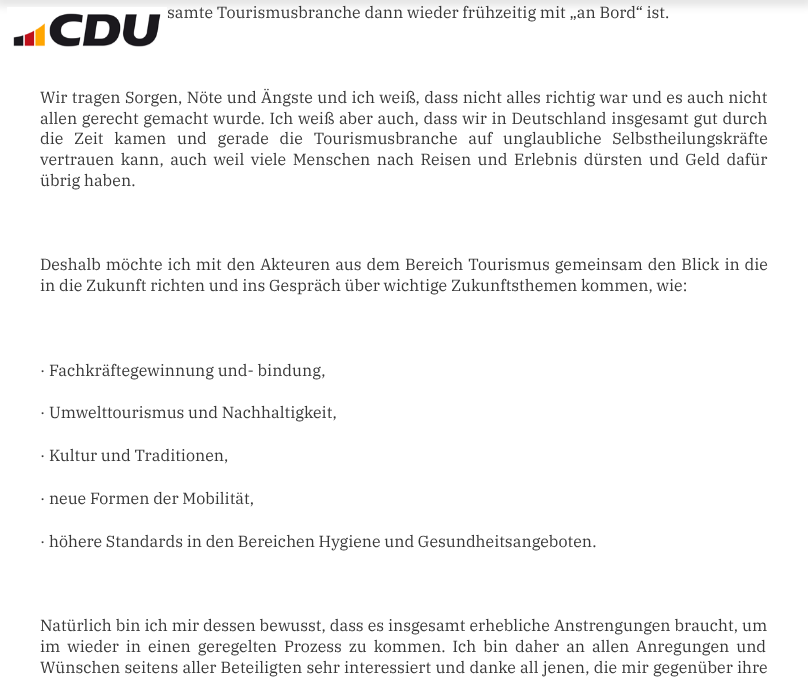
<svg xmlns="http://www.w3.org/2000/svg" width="808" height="682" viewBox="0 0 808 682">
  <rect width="100%" height="100%" fill="#fff"/>
  <path d="M-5 -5h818v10H-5z" fill="#00000021" filter="blur(5px)"/>
  <image x="7" y="7" width="160" height="40" href="img/1.png"/>
  <g font-family="IBM Plex Serif" font-size="16" fill="#383838">
    <text x="167" y="18">samte Tourismusbranche dann wieder frühzeitig mit „an Bord“ ist.</text>
    <text x="40" y="103" word-spacing="0.7">Wir tragen Sorgen, Nöte und Ängste und ich weiß, dass nicht alles richtig war und es auch nicht</text>
    <text x="40" y="124" word-spacing="1">allen gerecht gemacht wurde. Ich weiß aber auch, dass wir in Deutschland insgesamt gut durch</text>
    <text x="40" y="144" word-spacing="7">die Zeit kamen und gerade die Tourismusbranche auf unglaubliche Selbstheilungskräfte</text>
    <text x="40" y="165" word-spacing="2.75">vertrauen kann, auch weil viele Menschen nach Reisen und Erlebnis dürsten und Geld dafür</text>
    <text x="40" y="186">übrig haben.</text>
    <text x="40" y="270" word-spacing="1.25">Deshalb möchte ich mit den Akteuren aus dem Bereich Tourismus gemeinsam den Blick in die</text>
    <text x="40" y="291">in die Zukunft richten und ins Gespräch über wichtige Zukunftsthemen kommen, wie:</text>
    <text x="40" y="376">· Fachkräftegewinnung und- bindung,</text>
    <text x="40" y="418">· Umwelttourismus und Nachhaltigkeit,</text>
    <text x="40" y="461">· Kultur und Traditionen,</text>
    <text x="40" y="504">· neue Formen der Mobilität,</text>
    <text x="40" y="547">· höhere Standards in den Bereichen Hygiene und Gesundheitsangeboten.</text>
    <text x="40" y="631" word-spacing="0.25">Natürlich bin ich mir dessen bewusst, dass es insgesamt erhebliche Anstrengungen braucht, um</text>
    <text x="40" y="652" word-spacing="3.25">im wieder in einen geregelten Prozess zu kommen. Ich bin daher an allen Anregungen und</text>
    <text x="40" y="673" word-spacing="0.5">Wünschen seitens aller Beteiligten sehr interessiert und danke all jenen, die mir gegenüber ihre</text>
  </g>
</svg>
